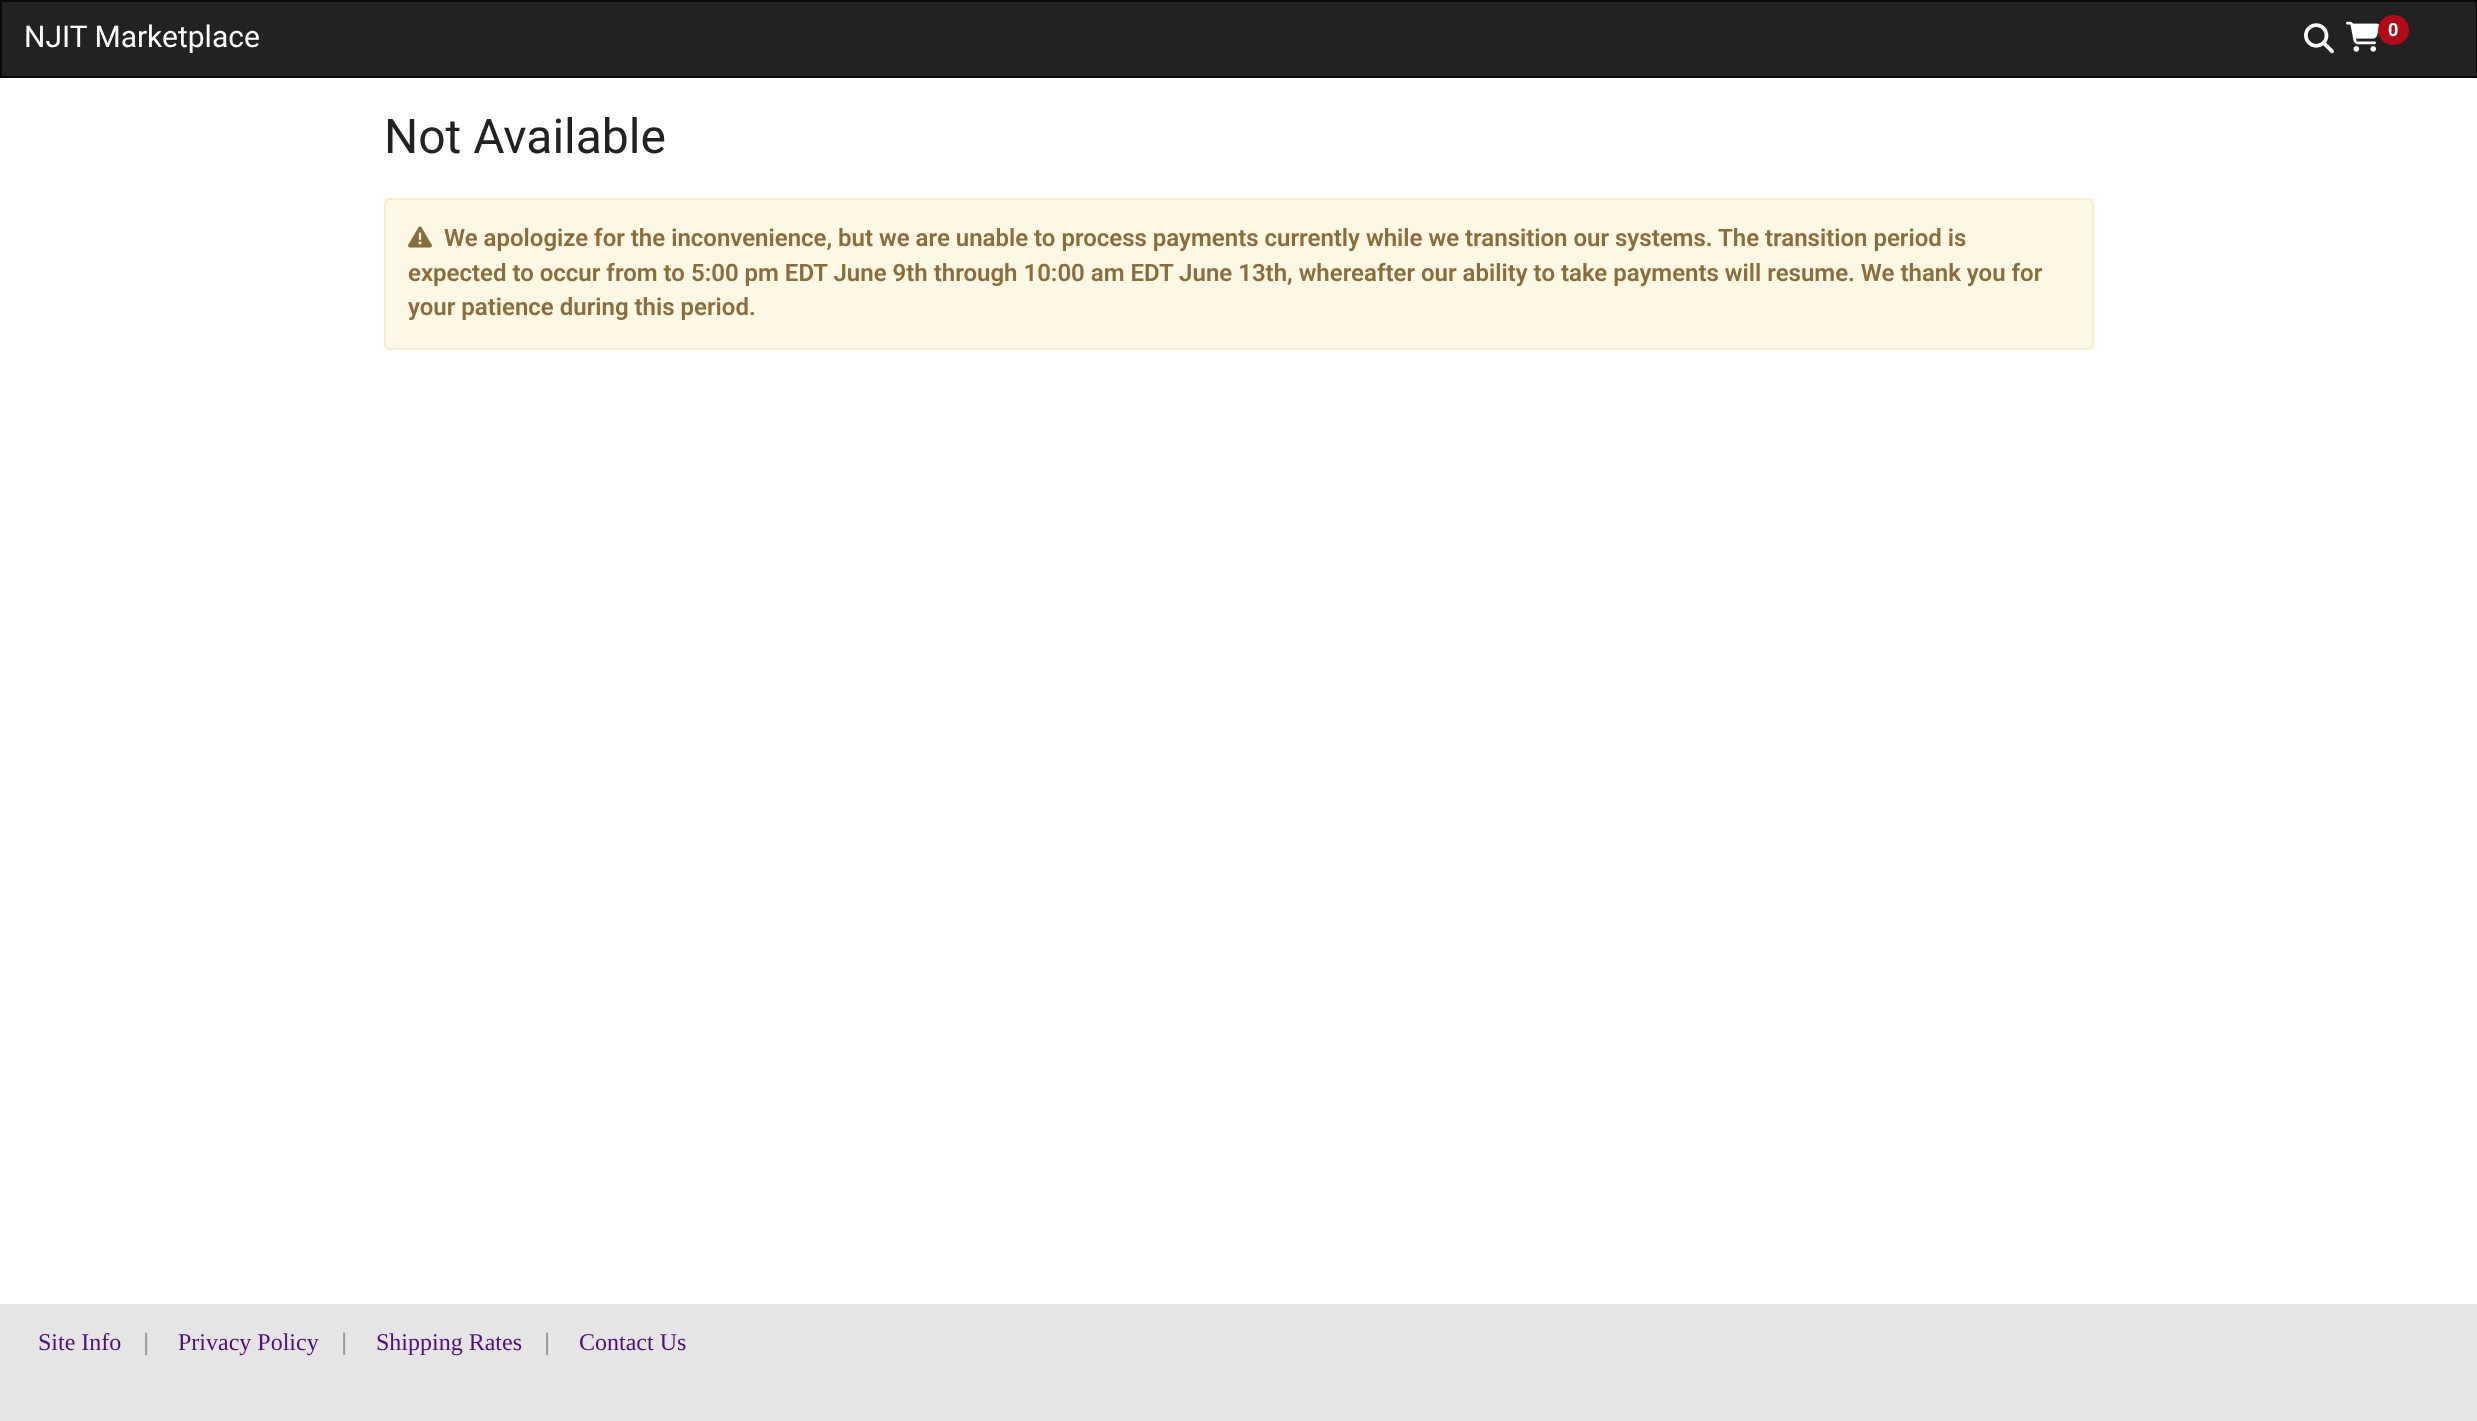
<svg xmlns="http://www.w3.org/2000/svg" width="2477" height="1421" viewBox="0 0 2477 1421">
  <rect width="100%" height="100%" fill="#fff"/>
  <path d="M1 1h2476v76H1z" fill="#222" stroke="#090909" stroke-width="2"/>
  <image x="2304" y="23" width="30" height="31" href="img/1.png"/>
  <image x="2346" y="21" width="34" height="31" href="img/2.png"/>
  <rect x="2378" y="15" width="31" height="30" rx="15" fill="#b10b19"/>
  <rect x="385" y="199" width="1708" height="150" rx="5" fill="#fcf8e3" stroke="#faebcc" stroke-width="2"/>
  <image x="408" y="226" width="24" height="22" href="img/3.png"/>
  <path d="M0 1304h2477v117H0z" fill="#e5e5e5"/>
  <text x="24" y="47" font-family="Roboto" font-size="30" fill="#fff">NJIT Marketplace</text>
  <text x="2388" y="36" font-family="Roboto" font-size="18" font-weight="bold" fill="#fff">0</text>
  <text x="384" y="153" font-family="Roboto" font-size="48" fill="#222">Not Available</text>
  <g font-family="Roboto" font-size="24" font-weight="600" fill="#8a6d3b">
    <text x="444" y="246">We apologize for the inconvenience, but we are unable to process payments currently while we transition our systems. The transition period is</text>
    <text x="408" y="281">expected to occur from to 5:00 pm EDT June 9th through 10:00 am EDT June 13th, whereafter our ability to take payments will resume. We thank you for</text>
    <text x="408" y="315">your patience during this period.</text>
  </g>
  <text x="38" y="1350" font-family="Liberation Serif" font-size="24" fill="#4f107a">Site Info</text>
  <text x="143" y="1350" font-family="Liberation Sans" font-size="24" fill="#989898">|</text>
  <text x="178" y="1350" font-family="Liberation Serif" font-size="24" fill="#4f107a">Privacy Policy</text>
  <text x="341" y="1350" font-family="Liberation Sans" font-size="24" fill="#989898">|</text>
  <text x="376" y="1350" font-family="Liberation Serif" font-size="24" fill="#4f107a">Shipping Rates</text>
  <text x="544" y="1350" font-family="Liberation Sans" font-size="24" fill="#989898">|</text>
  <text x="579" y="1350" font-family="Liberation Serif" font-size="24" fill="#4f107a">Contact Us</text>
</svg>
